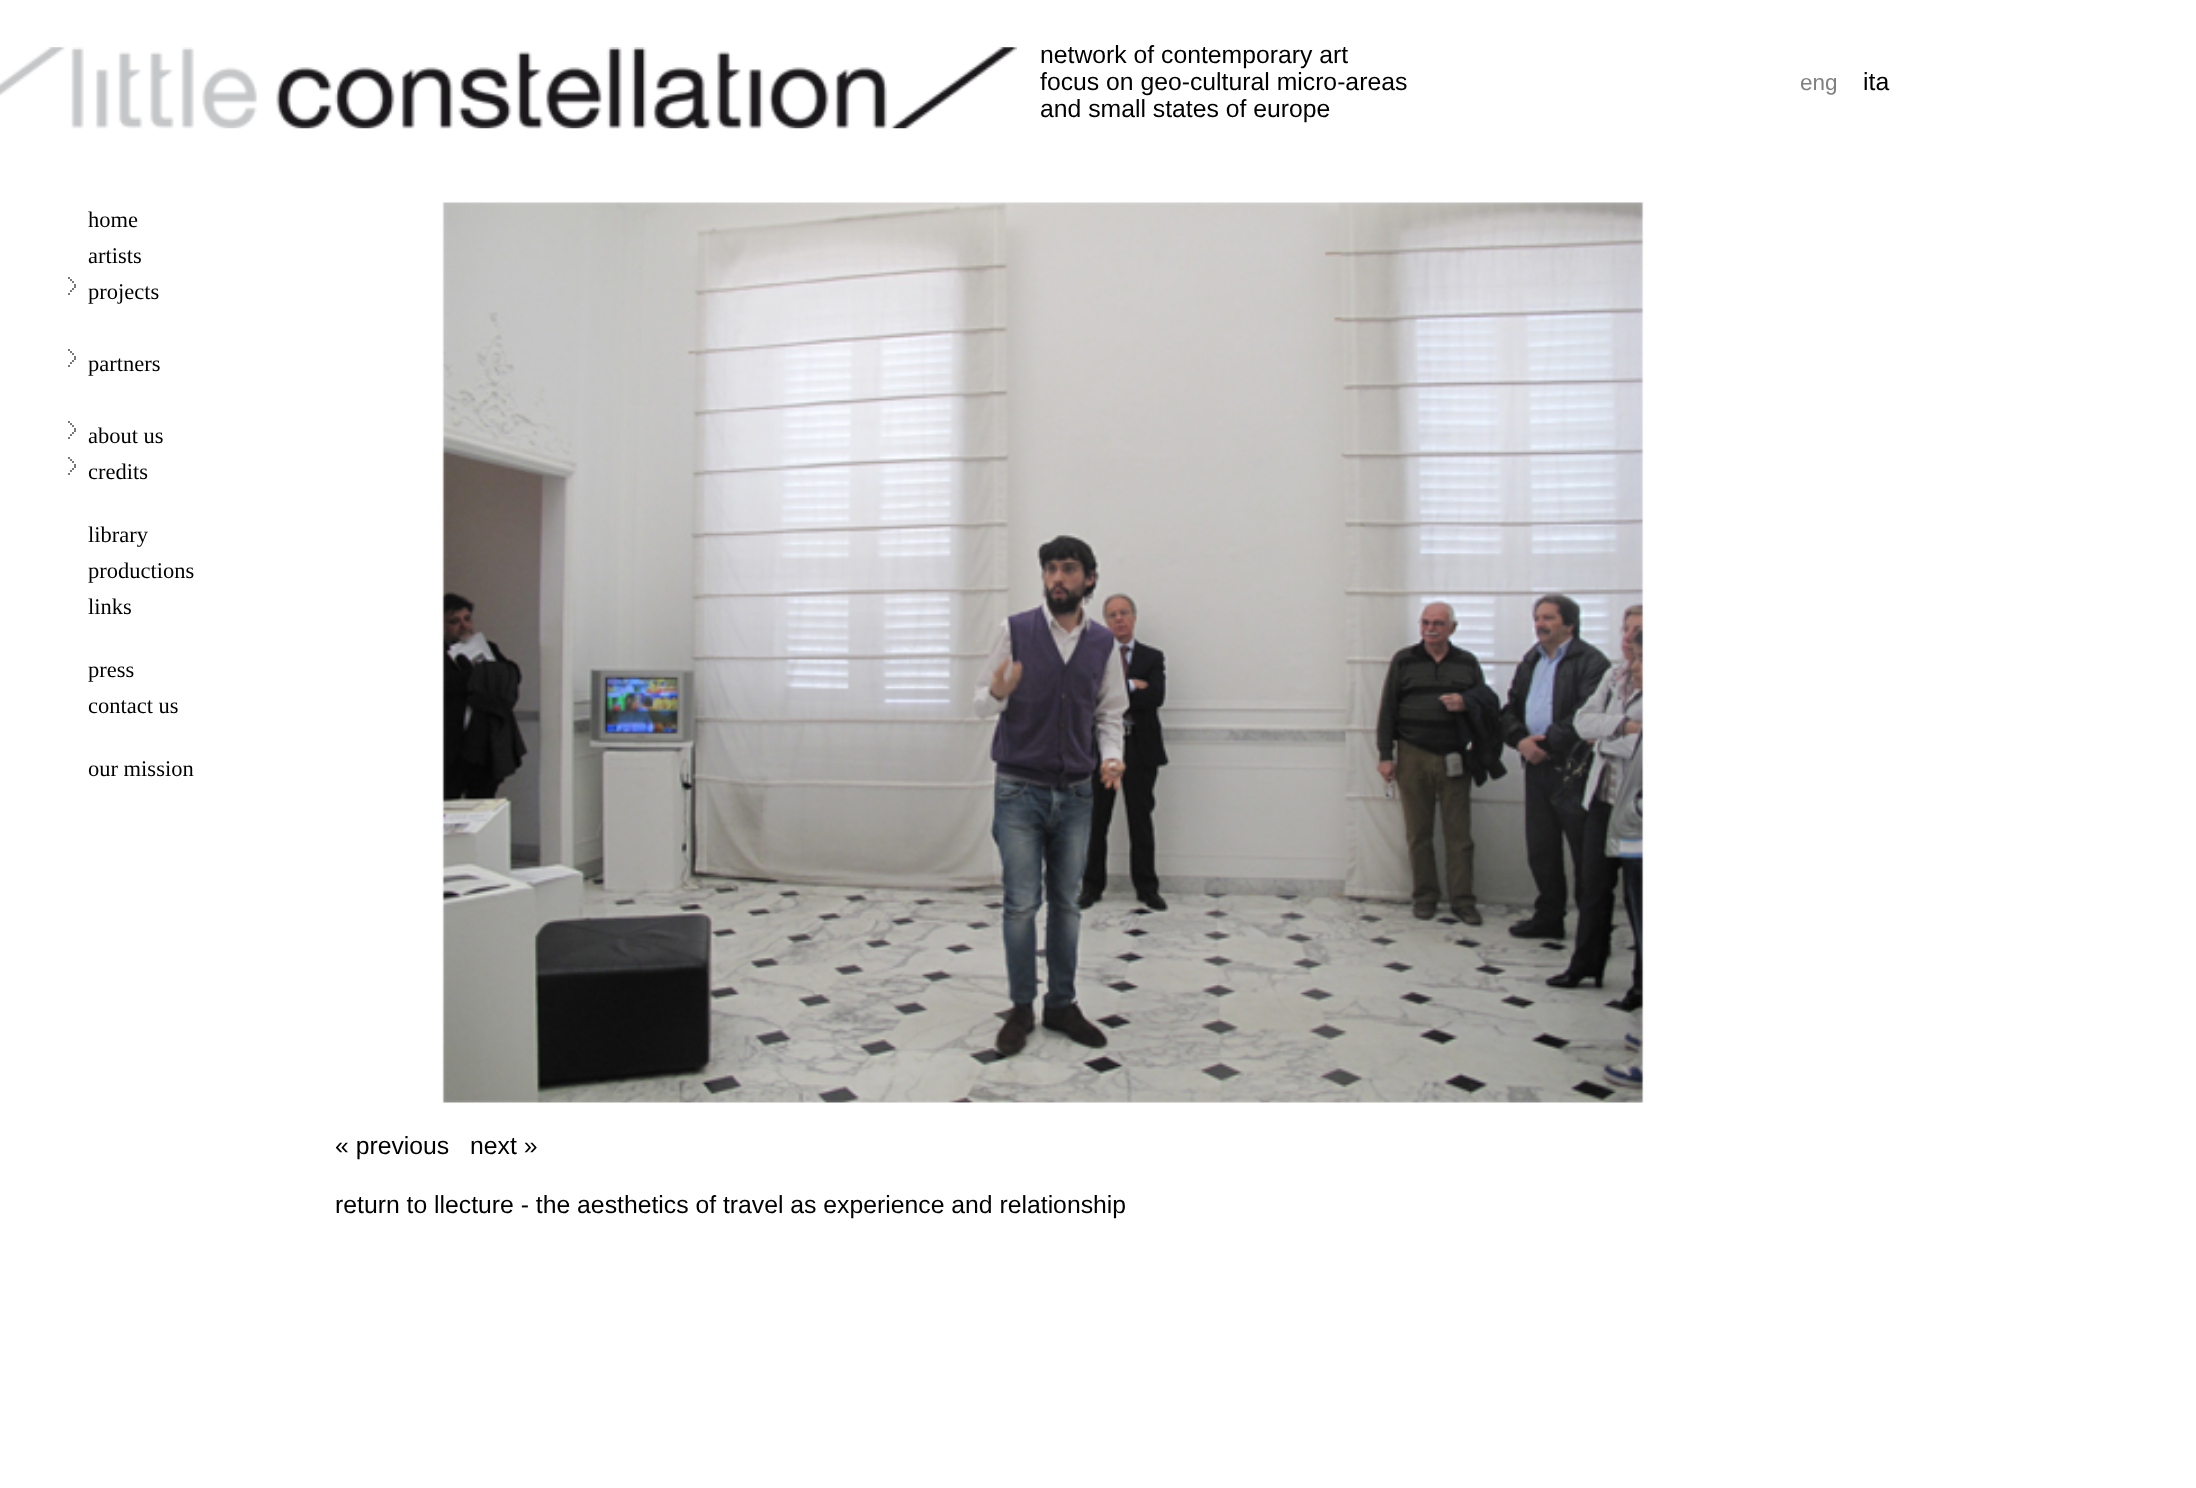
<svg xmlns="http://www.w3.org/2000/svg" width="2196" height="1488" viewBox="0 0 2196 1488">
  <rect width="100%" height="100%" fill="#fff"/>
  <image x="0" y="47" width="1017" height="82" href="img/1.png"/>
  <path d="M68 277h2v2H68z" fill="#797979"/>
  <path d="M68 293h2v2H68z" fill="#797979"/>
  <path d="M70 279h2v2H70z" fill="#797979"/>
  <path d="M70 290h2v2H70z" fill="#797979"/>
  <path d="M72 281h2v2H72z" fill="#797979"/>
  <path d="M72 288h2v2H72z" fill="#797979"/>
  <path d="M74 284h2v4H74z" fill="#797979"/>
  <path d="M68 349h2v2H68z" fill="#797979"/>
  <path d="M68 365h2v2H68z" fill="#797979"/>
  <path d="M70 351h2v2H70z" fill="#797979"/>
  <path d="M70 362h2v2H70z" fill="#797979"/>
  <path d="M72 353h2v2H72z" fill="#797979"/>
  <path d="M72 360h2v2H72z" fill="#797979"/>
  <path d="M74 356h2v4H74z" fill="#797979"/>
  <path d="M68 421h2v2H68z" fill="#797979"/>
  <path d="M68 437h2v2H68z" fill="#797979"/>
  <path d="M70 423h2v2H70z" fill="#797979"/>
  <path d="M70 434h2v2H70z" fill="#797979"/>
  <path d="M72 425h2v2H72z" fill="#797979"/>
  <path d="M72 432h2v2H72z" fill="#797979"/>
  <path d="M74 428h2v4H74z" fill="#797979"/>
  <path d="M68 457h2v2H68z" fill="#797979"/>
  <path d="M68 473h2v2H68z" fill="#797979"/>
  <path d="M70 459h2v2H70z" fill="#797979"/>
  <path d="M70 470h2v2H70z" fill="#797979"/>
  <path d="M72 461h2v2H72z" fill="#797979"/>
  <path d="M72 468h2v2H72z" fill="#797979"/>
  <path d="M74 464h2v4H74z" fill="#797979"/>
  <image x="442" y="202" width="1202" height="901" href="img/2.png"/>
  <g font-family="Liberation Sans" font-size="24.75" fill="#000">
    <text x="1040" y="63">network of contemporary art</text>
    <text x="1040" y="90">focus on geo-cultural micro-areas</text>
    <text x="1040" y="117">and small states of europe</text>
  </g>
  <text x="1800" y="90" font-family="Liberation Sans" font-size="22.5" fill="#808080">eng</text>
  <text x="1863" y="90" font-family="Liberation Sans" font-size="24.75" fill="#000">ita</text>
  <g font-family="Liberation Serif" font-size="22.5" fill="#000">
    <text x="88" y="227">home</text>
    <text x="88" y="263">artists</text>
    <text x="88" y="299">projects</text>
    <text x="88" y="371">partners</text>
    <text x="88" y="443">about us</text>
    <text x="88" y="479">credits</text>
    <text x="88" y="542">library</text>
    <text x="88" y="578">productions</text>
    <text x="88" y="614">links</text>
    <text x="88" y="677">press</text>
    <text x="88" y="713">contact us</text>
    <text x="88" y="776">our mission</text>
  </g>
  <g font-family="Liberation Sans" font-size="24.75" fill="#000">
    <text x="335" y="1154">« previous</text>
    <text x="470" y="1154">next »</text>
    <text x="335" y="1213">return to llecture - the aesthetics of travel as experience and relationship</text>
  </g>
</svg>
